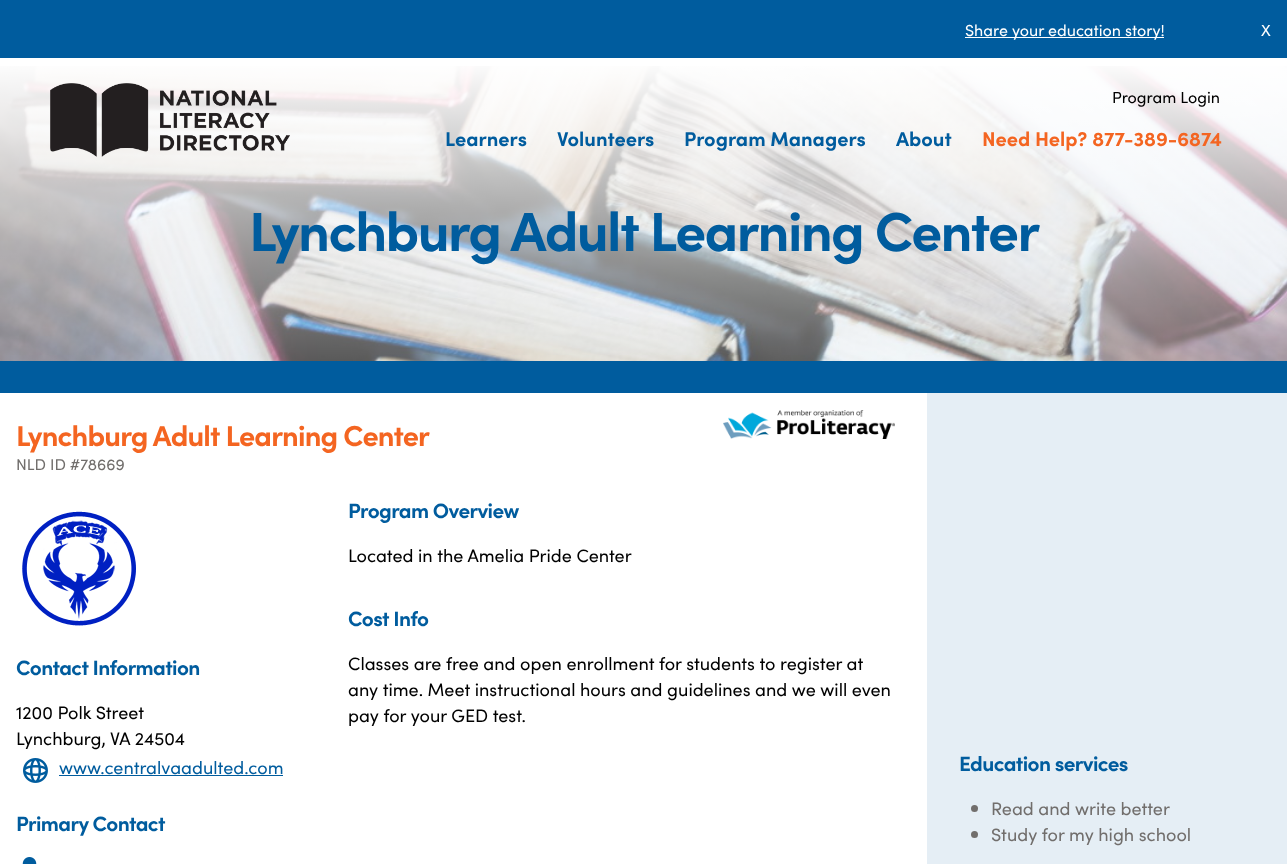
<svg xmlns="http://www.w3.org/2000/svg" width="1287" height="864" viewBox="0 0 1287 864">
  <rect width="100%" height="100%" fill="#fff"/>
  <path d="M0 0h1287v58H0z" fill="#005c9e"/>
  <path d="M965 37h199v1H965z" fill="#fff"/>
  <image x="0" y="66" width="1287" height="295" href="img/2.png"/>
  <image x="50" y="83" width="240" height="74" href="img/1.png"/>
  <path d="M0 361h1287v32H0z" fill="#005c9e"/>
  <image x="723" y="410" width="172" height="29" href="img/3.png"/>
  <image x="22" y="511" width="114" height="115" href="img/4.png"/>
  <image x="23" y="758" width="25" height="25" href="img/5.png"/>
  <path d="M59 775h224v1H59z" fill="#005c9e"/>
  <image x="22" y="857" width="15" height="7" href="img/6.png"/>
  <path d="M927 393h360v471H927z" fill="#e5eef5"/>
  <circle cx="974.5" cy="808.5" r="3.5" fill="#716e6c"/>
  <circle cx="974.5" cy="834.5" r="3.5" fill="#716e6c"/>
  <g font-family="Sofia" font-size="16" fill="#fff">
    <text x="965" y="36">Share your education story!</text>
    <text x="1261" y="36">X</text>
  </g>
  <text x="1112" y="103" font-family="Sofia" font-size="16" fill="#000">Program Login</text>
  <g font-family="Sofia" font-size="20" font-weight="bold" fill="#005c9e">
    <text x="445" y="146">Learners</text>
    <text x="557" y="146">Volunteers</text>
    <text x="684" y="146">Program Managers</text>
    <text x="896" y="146">About</text>
  </g>
  <text x="982" y="146" font-family="Sofia" font-size="20" font-weight="bold" fill="#f46521">Need Help? 877-389-6874</text>
  <text x="249" y="251" font-family="Sofia" font-size="55" font-weight="bold" letter-spacing="-1.65" fill="#005c9e">Lynchburg Adult Learning Center</text>
  <text x="16" y="446" font-family="Sofia" font-size="28.75" font-weight="bold" letter-spacing="-0.85" fill="#f46521">Lynchburg Adult Learning Center</text>
  <text x="16" y="470" font-family="Sofia" font-size="15.75" fill="#716e6c">NLD ID #78669</text>
  <text x="348" y="518" font-family="Sofia" font-size="20.75" font-weight="bold" letter-spacing="-0.6" fill="#005c9e">Program Overview</text>
  <text x="348" y="562" font-family="Sofia" font-size="18" fill="#000">Located in the Amelia Pride Center</text>
  <text x="348" y="626" font-family="Sofia" font-size="20.75" font-weight="bold" letter-spacing="-0.6" fill="#005c9e">Cost Info</text>
  <g font-family="Sofia" font-size="18" fill="#000">
    <text x="348" y="670">Classes are free and open enrollment for students to register at</text>
    <text x="348" y="696">any time. Meet instructional hours and guidelines and we will even</text>
    <text x="348" y="722">pay for your GED test.</text>
  </g>
  <text x="16" y="675" font-family="Sofia" font-size="20.75" font-weight="bold" letter-spacing="-0.6" fill="#005c9e">Contact Information</text>
  <g font-family="Sofia" font-size="18" fill="#000">
    <text x="16" y="719">1200 Polk Street</text>
    <text x="16" y="745">Lynchburg, VA 24504</text>
  </g>
  <text x="59" y="774" font-family="Sofia" font-size="18" fill="#005c9e">www.centralvaadulted.com</text>
  <g font-family="Sofia" font-size="20.75" font-weight="bold" letter-spacing="-0.6" fill="#005c9e">
    <text x="16" y="831">Primary Contact</text>
    <text x="959" y="771">Education services</text>
  </g>
  <g font-family="Sofia" font-size="18" fill="#716e6c">
    <text x="991" y="815">Read and write better</text>
    <text x="991" y="841">Study for my high school</text>
  </g>
</svg>
